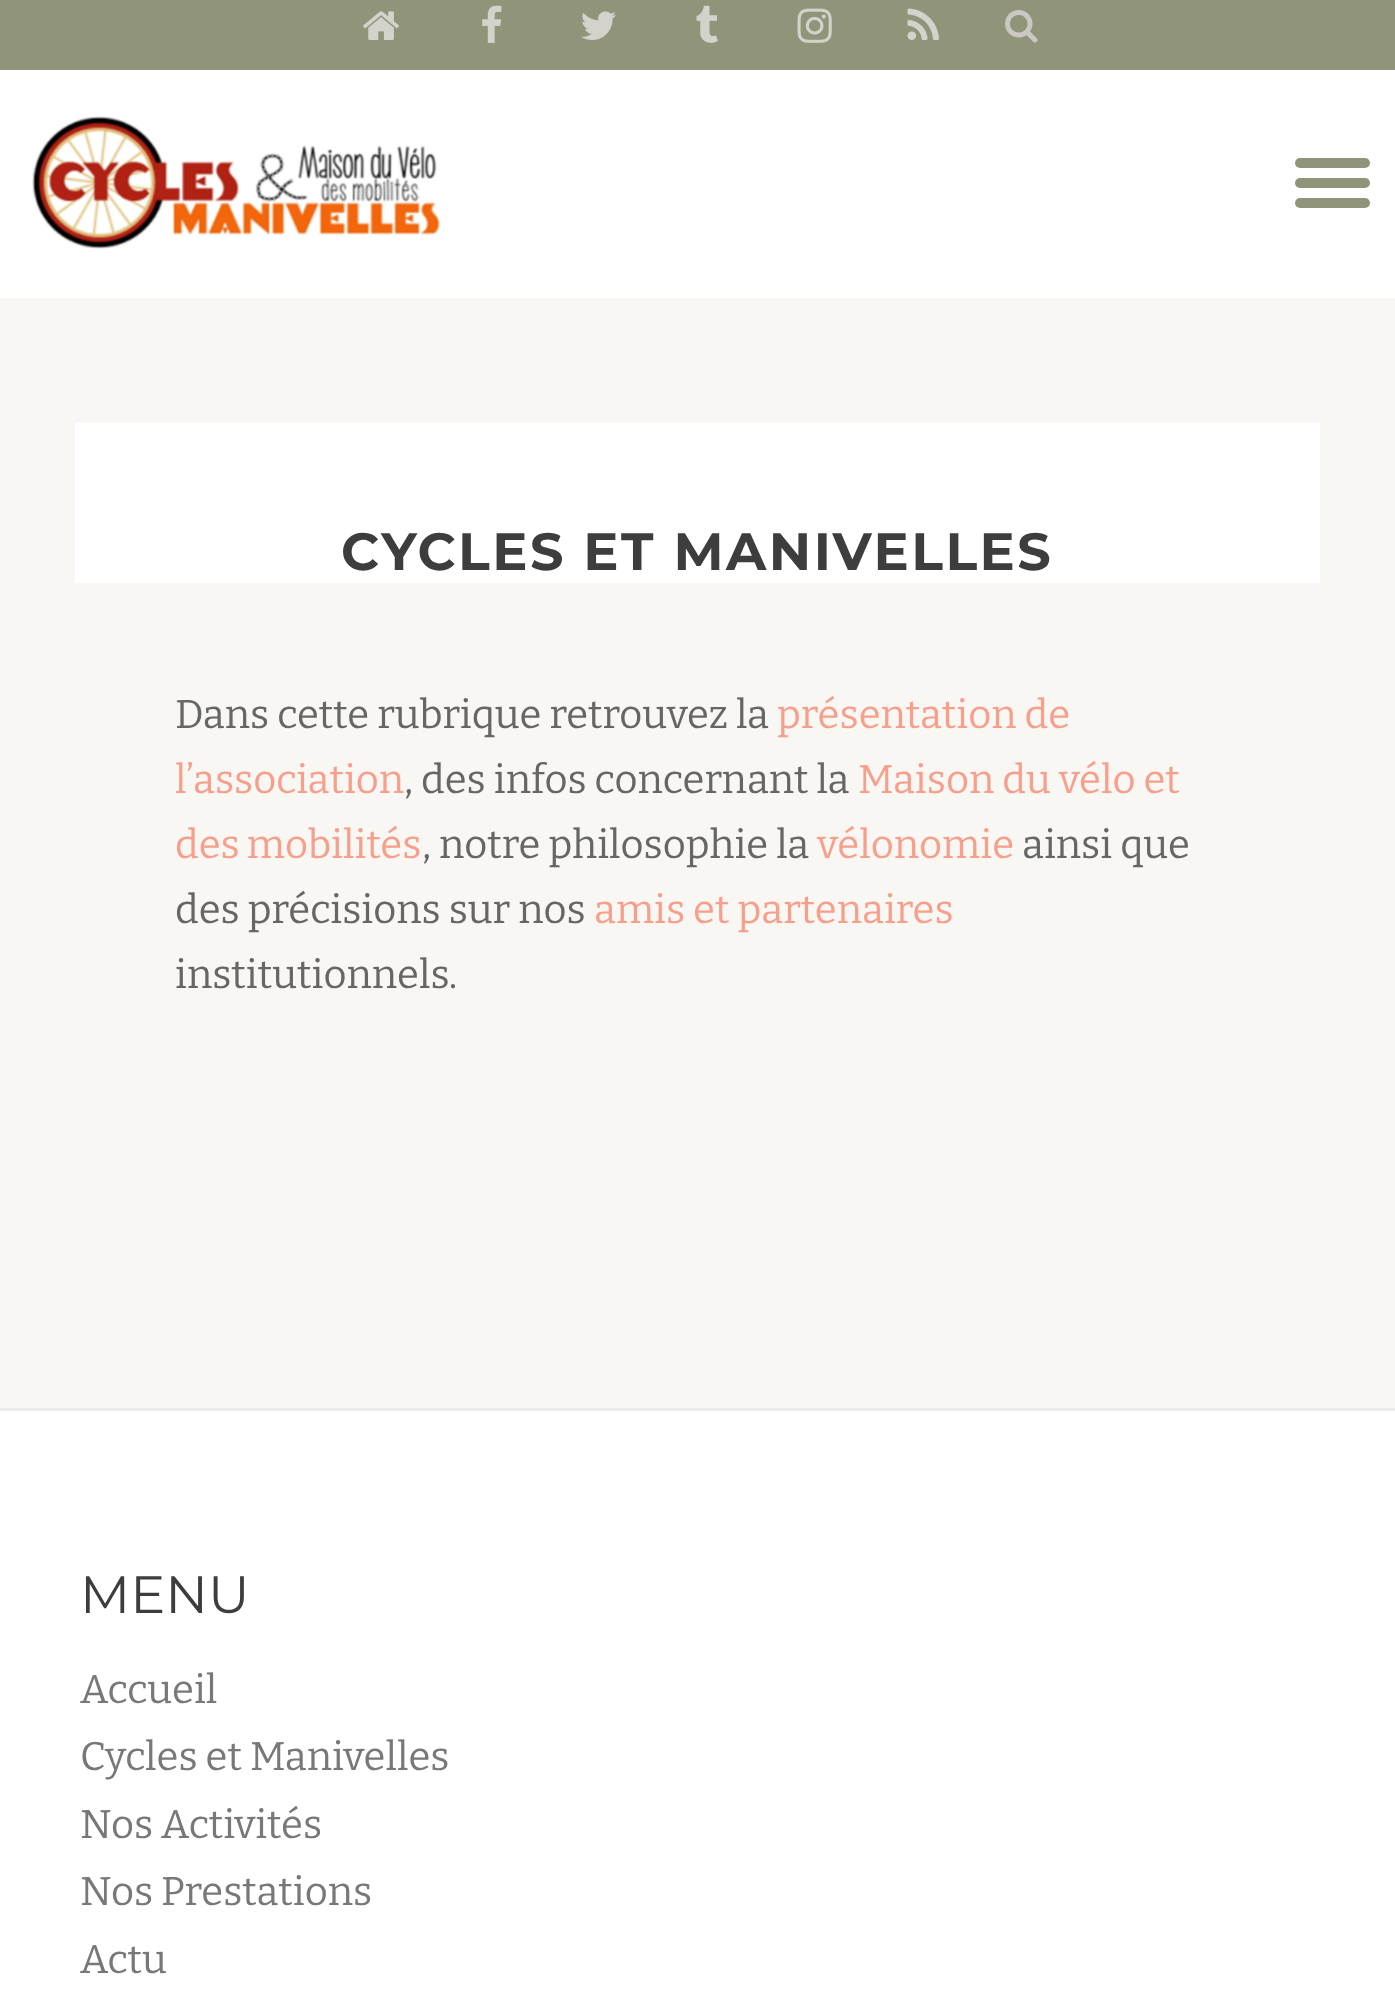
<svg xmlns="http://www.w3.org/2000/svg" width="1395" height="2002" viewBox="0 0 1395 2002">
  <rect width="100%" height="100%" fill="#f8f7f3"/>
  <path d="M0 70h1395v228H0z" fill="#fff"/>
  <path d="M0 0h1395v70H0z" fill="#90957a"/>
  <image x="363" y="11" width="36" height="29" href="img/1.png"/>
  <image x="482" y="5" width="20" height="38" href="img/2.png"/>
  <image x="581" y="11" width="35" height="29" href="img/3.png"/>
  <image x="696" y="5" width="22" height="38" href="img/4.png"/>
  <image x="797" y="8" width="35" height="35" href="img/5.png"/>
  <image x="907" y="8" width="32" height="32" href="img/6.png"/>
  <image x="1005" y="10" width="33" height="33" href="img/7.png"/>
  <image x="32" y="116" width="409" height="133" href="img/8.png"/>
  <rect x="1295" y="158" width="75" height="10" rx="5" fill="#90957a"/>
  <rect x="1295" y="178" width="75" height="10" rx="5" fill="#90957a"/>
  <rect x="1295" y="198" width="75" height="10" rx="5" fill="#90957a"/>
  <path d="M75 423h1245v160H75z" fill="#fff"/>
  <path d="M0 1411h1395v591H0z" fill="#fff"/>
  <path d="M0 1408h1395v3H0z" fill="#eaebec"/>
  <text x="341" y="570" font-family="Montserrat" font-size="52.5" font-weight="bold" letter-spacing="2.5" fill="#3d3d3d">CYCLES ET MANIVELLES</text>
  <text x="175" y="728" font-family="Bitter" font-size="40" font-weight="100" fill="#666">Dans cette rubrique retrouvez la</text>
  <g font-family="Bitter" font-size="40" font-weight="100" fill="#f89f8b">
    <text x="777" y="728">présentation de</text>
    <text x="175" y="793">l’association</text>
  </g>
  <text x="404" y="793" font-family="Bitter" font-size="40" font-weight="100" fill="#666">, des infos concernant la</text>
  <g font-family="Bitter" font-size="40" font-weight="100" fill="#f89f8b">
    <text x="858" y="793">Maison du vélo et</text>
    <text x="175" y="858" word-spacing="-1">des mobilités</text>
  </g>
  <text x="422" y="858" font-family="Bitter" font-size="40" font-weight="100" fill="#666">, notre philosophie la</text>
  <text x="817" y="858" font-family="Bitter" font-size="40" font-weight="100" fill="#f89f8b">vélonomie</text>
  <g font-family="Bitter" font-size="40" font-weight="100" fill="#666">
    <text x="1022" y="858">ainsi que</text>
    <text x="175" y="923">des précisions sur nos</text>
  </g>
  <text x="594" y="923" font-family="Bitter" font-size="40" font-weight="100" fill="#f89f8b">amis et partenaires</text>
  <text x="175" y="988" font-family="Bitter" font-size="40" font-weight="100" fill="#666">institutionnels.</text>
  <text x="80" y="1613" font-family="Montserrat" font-size="52.5" fill="#3d3d3d">MENU</text>
  <g font-family="Bitter" font-size="40" font-weight="100" fill="#787977">
    <text x="80" y="1703">Accueil</text>
    <text x="80" y="1770">Cycles et Manivelles</text>
    <text x="80" y="1838">Nos Activités</text>
    <text x="80" y="1905">Nos Prestations</text>
    <text x="80" y="1973">Actu</text>
  </g>
</svg>
